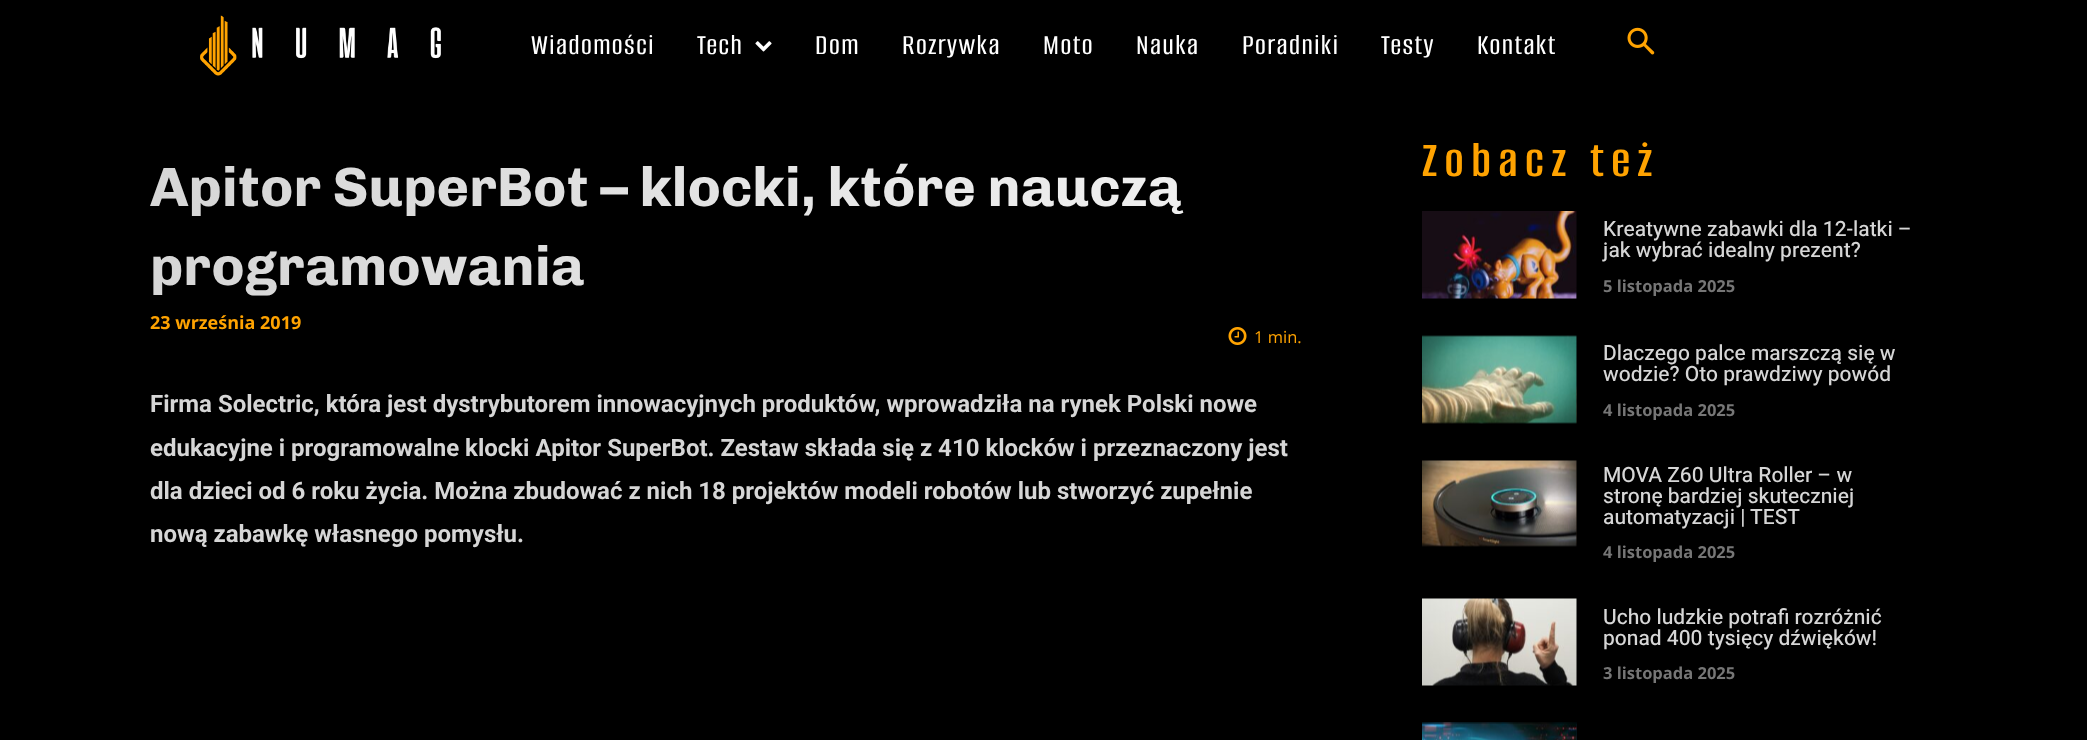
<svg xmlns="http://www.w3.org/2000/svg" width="2087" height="740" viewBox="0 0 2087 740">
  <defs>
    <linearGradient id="g1" gradientUnits="userSpaceOnUse" x1="1302" y1="226" x2="150" y2="226"><stop offset="0" stop-color="#f2f2f2"/><stop offset="1" stop-color="#d6d6d6"/></linearGradient>
  </defs>
  <rect width="100%" height="100%" fill="#000"/>
  <image x="200" y="15" width="241" height="61" href="img/1.png"/>
  <image x="755" y="41" width="17" height="11" href="img/2.png"/>
  <image x="1627" y="27" width="28" height="28" href="img/3.png"/>
  <image x="1228" y="327" width="19" height="18" href="img/4.png"/>
  <image x="1422" y="211" width="155" height="88" href="img/5.png"/>
  <image x="1422" y="335" width="155" height="89" href="img/6.png"/>
  <image x="1422" y="460" width="155" height="87" href="img/7.png"/>
  <image x="1422" y="598" width="155" height="88" href="img/8.png"/>
  <image x="1422" y="722" width="155" height="18" href="img/9.png"/>
  <g font-family="Alumni Sans" font-size="30" font-weight="500" letter-spacing="1.5" fill="#fff">
    <text x="531" y="54">Wiadomości</text>
    <text x="697" y="54">Tech</text>
    <text x="815" y="54">Dom</text>
    <text x="902" y="54">Rozrywka</text>
    <text x="1043" y="54">Moto</text>
    <text x="1136" y="54">Nauka</text>
    <text x="1242" y="54">Poradniki</text>
    <text x="1381" y="54">Testy</text>
    <text x="1477" y="54">Kontakt</text>
  </g>
  <g font-family="Chivo" font-size="55.5" font-weight="bold" fill="url(#g1)">
    <text x="150" y="206">Apitor SuperBot – klocki, które nauczą</text>
    <text x="150" y="285">programowania</text>
  </g>
  <text x="150" y="329" font-family="Open Sans" font-size="18" font-weight="bold" fill="#ffa301">23 września 2019</text>
  <text x="1254" y="343" font-family="Open Sans" font-size="16.5" fill="#ffa301">1 min.</text>
  <g font-family="Roboto" font-size="24" font-weight="bold" fill="#d6d6d6">
    <text x="150" y="412">Firma Solectric, która jest dystrybutorem innowacyjnych produktów, wprowadziła na rynek Polski nowe</text>
    <text x="150" y="456">edukacyjne i programowalne klocki Apitor SuperBot. Zestaw składa się z 410 klocków i przeznaczony jest</text>
    <text x="150" y="499">dla dzieci od 6 roku życia. Można zbudować z nich 18 projektów modeli robotów lub stworzyć zupełnie</text>
    <text x="150" y="542">nową zabawkę własnego pomysłu.</text>
  </g>
  <text x="1422" y="176" font-family="Alumni Sans" font-size="52.5" font-weight="600" letter-spacing="7.5" fill="#ffa301">Zobacz też</text>
  <g font-family="Heebo" font-size="21" font-weight="500" fill="#d6d6d6">
    <text x="1603" y="236">Kreatywne zabawki dla 12-latki –</text>
    <text x="1603" y="257">jak wybrać idealny prezent?</text>
  </g>
  <text x="1603" y="292" font-family="Open Sans" font-size="16.5" font-weight="bold" fill="#767676">5 listopada 2025</text>
  <g font-family="Heebo" font-size="21" font-weight="500" fill="#d6d6d6">
    <text x="1603" y="360">Dlaczego palce marszczą się w</text>
    <text x="1603" y="381">wodzie? Oto prawdziwy powód</text>
  </g>
  <text x="1603" y="416" font-family="Open Sans" font-size="16.5" font-weight="bold" fill="#767676">4 listopada 2025</text>
  <g font-family="Heebo" font-size="21" font-weight="500" fill="#d6d6d6">
    <text x="1603" y="482">MOVA Z60 Ultra Roller – w</text>
    <text x="1603" y="503">stronę bardziej skuteczniej</text>
    <text x="1603" y="524">automatyzacji | TEST</text>
  </g>
  <text x="1603" y="558" font-family="Open Sans" font-size="16.5" font-weight="bold" fill="#767676">4 listopada 2025</text>
  <g font-family="Heebo" font-size="21" font-weight="500" fill="#d6d6d6">
    <text x="1603" y="624">Ucho ludzkie potrafi rozróżnić</text>
    <text x="1603" y="645">ponad 400 tysięcy dźwięków!</text>
  </g>
  <text x="1603" y="679" font-family="Open Sans" font-size="16.5" font-weight="bold" fill="#767676">3 listopada 2025</text>
</svg>
